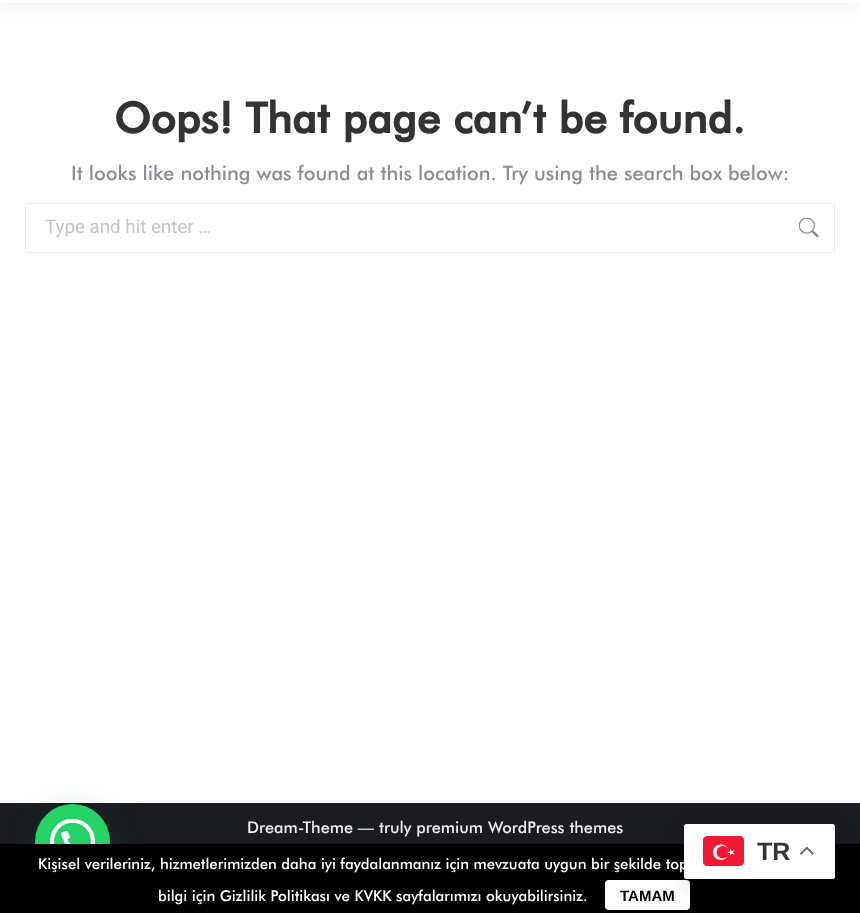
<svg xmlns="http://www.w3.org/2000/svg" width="860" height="913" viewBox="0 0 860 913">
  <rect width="100%" height="100%" fill="#fff"/>
  <path d="M-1 -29h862v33H-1z" fill="#00000012" filter="blur(9.5px)"/>
  <path d="M0 0h860v3H0z" fill="#fff"/>
  <rect x="25.5" y="203.5" width="809" height="49" rx="2" fill="none" stroke="#e7e7e7"/>
  <image x="799" y="218" width="20" height="20" href="img/1.png"/>
  <path d="M0 803h860v41H0z" fill="#1a1c20"/>
  <rect x="36" y="811" width="75" height="75" rx="37.5" fill="#075e543d" filter="blur(15px)"/>
  <circle cx="72.5" cy="841.5" r="37.5" fill="#25d366"/>
  <image x="50" y="819" width="45" height="25" href="img/2.png"/>
  <path d="M0 844h860v69H0z" fill="#000"/>
  <rect x="605" y="880" width="85" height="30" rx="4" fill="#fff"/>
  <rect x="684" y="830" width="151" height="55" rx="2.5" fill="#00000026" filter="blur(9.5px)"/>
  <rect x="684" y="824" width="151" height="55" rx="2.5" fill="#fff"/>
  <image x="703" y="836" width="41" height="30" href="img/3.png"/>
  <image x="800" y="846" width="14" height="9" href="img/4.png"/>
  <text x="114" y="133" font-family="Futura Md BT" font-size="42.5" font-weight="bold" fill="#333">Oops! That page can’t be found.</text>
  <text x="71" y="180" font-family="Futura Md BT" font-size="20" font-weight="500" fill="#8b8d94">It looks like nothing was found at this location. Try using the search box below:</text>
  <text x="45" y="233" font-family="Roboto" font-size="18.75" fill="#c4c5c9">Type and hit enter …</text>
  <text x="247" y="833" font-family="Futura Md BT" font-size="16.25" font-weight="500" fill="#eee">Dream-Theme — truly premium WordPress themes</text>
  <text x="757" y="860" font-family="Liberation Sans" font-size="25" font-weight="bold" fill="#333">TR</text>
  <g font-family="Futura Md BT" font-size="15" font-weight="500" fill="#fff">
    <text x="38" y="869">Kişisel verileriniz, hizmetlerimizden daha iyi faydalanmanız için mevzuata uygun bir şekilde top</text>
    <text x="158" y="901">bilgi için Gizlilik Politikası ve KVKK sayfalarımızı okuyabilirsiniz.</text>
  </g>
  <text x="620" y="901" font-family="Liberation Sans" font-size="15" font-weight="bold" fill="#000">TAMAM</text>
</svg>
